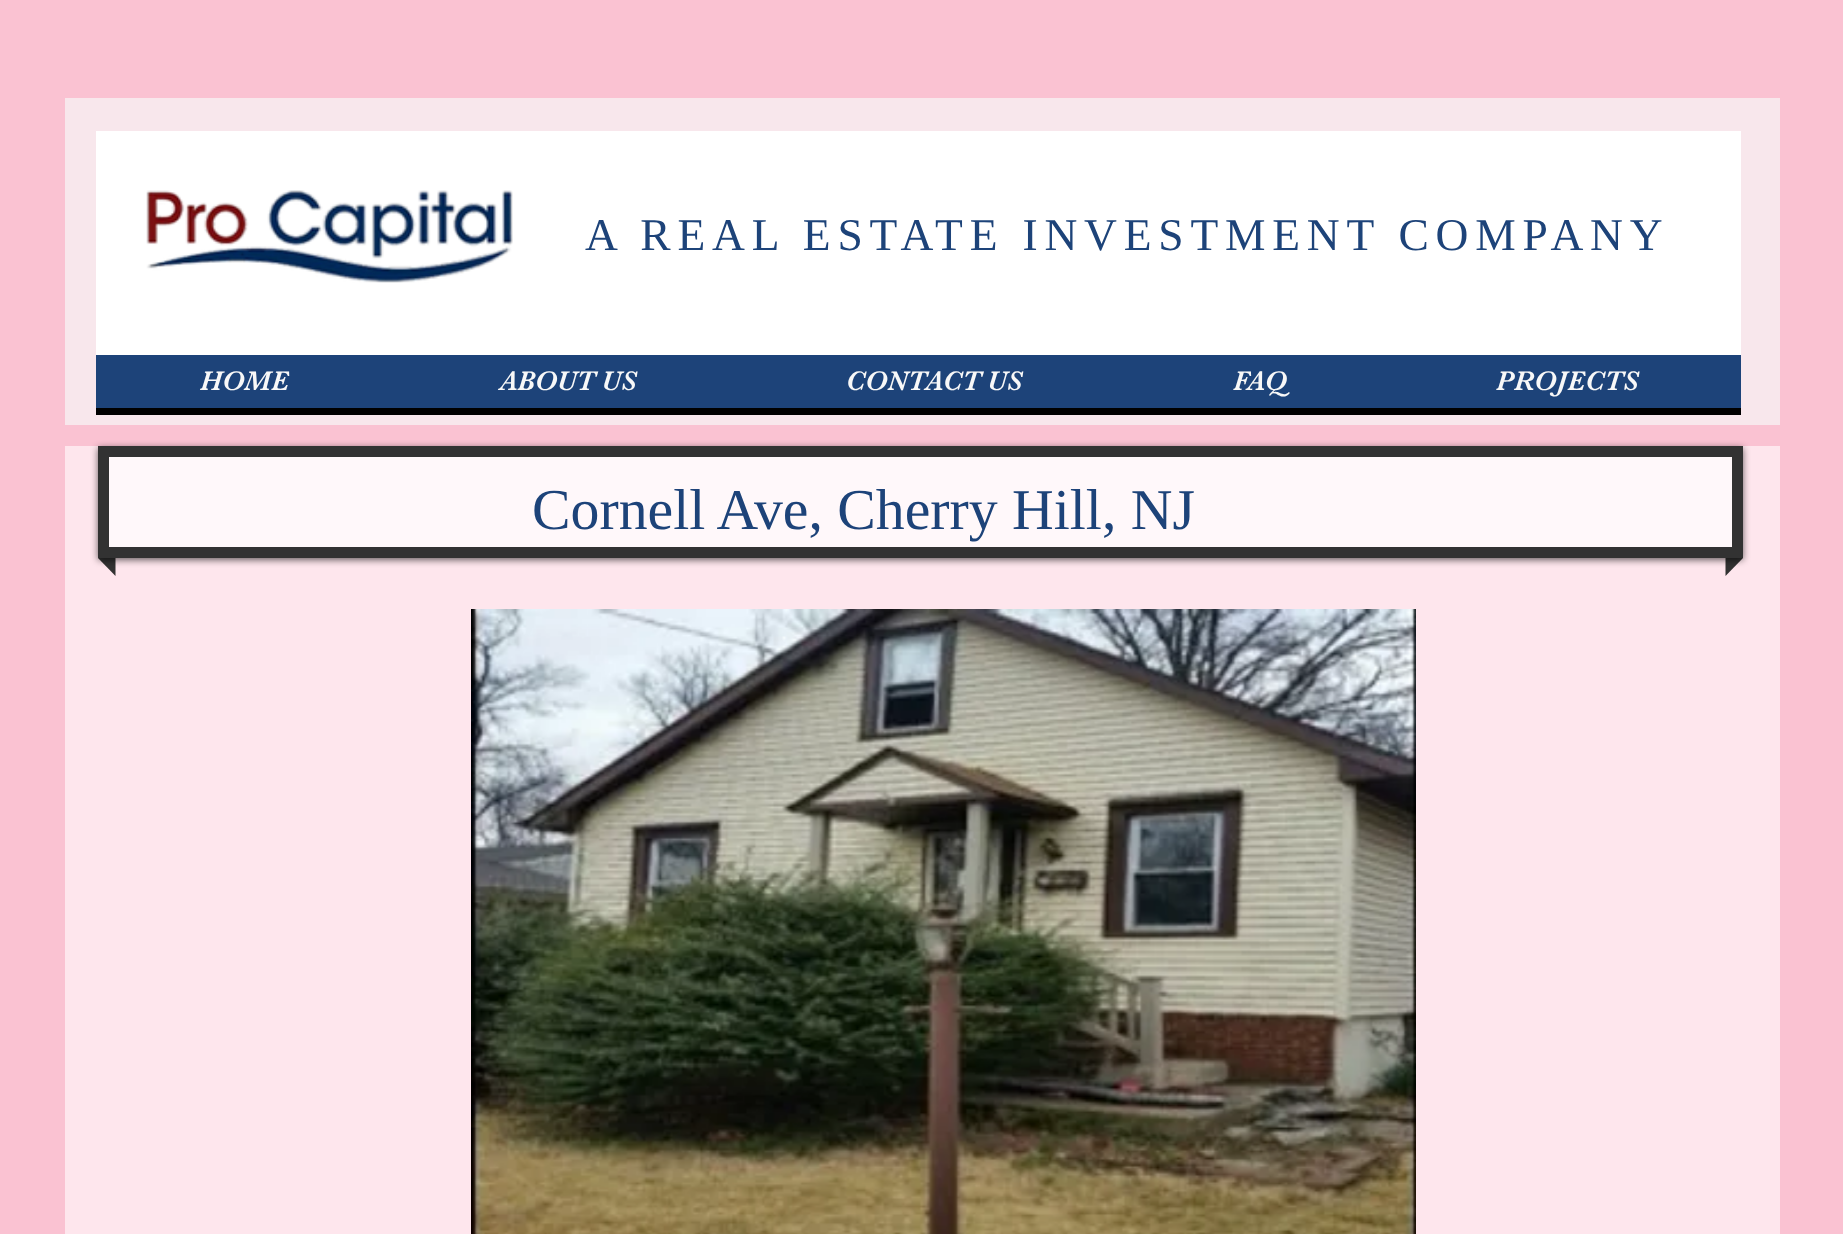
<svg xmlns="http://www.w3.org/2000/svg" width="1843" height="1234" viewBox="0 0 1843 1234">
  <defs>
    <clipPath id="clip1"><path d="M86 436H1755V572H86ZM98 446H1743V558H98Z" clip-rule="evenodd"/></clipPath>
  </defs>
  <rect width="100%" height="100%" fill="#fac2d2"/>
  <path d="M65 98h1715v327H65z" fill="#f8e7ec"/>
  <path d="M96 131h1645v224H96z" fill="#fff"/>
  <image x="146" y="190" width="367" height="93" href="img/1.png"/>
  <path d="M96 362V415H1741V408H96Z" fill="#000"/>
  <path d="M96 355h1645v53H96z" fill="#1d4379"/>
  <path d="M65 446h1715v788H65z" fill="#fee6ed"/>
  <path d="M98 558H115.5V576Z" fill="#323232"/>
  <path d="M1725.5 558H1743L1725.5 576Z" fill="#323232"/>
  <g clip-path="url(#clip1)">
    <path d="M98 448h1645v112H98z" fill="#00000099" filter="blur(3.5px)"/>
  </g>
  <path d="M103.5 451.5h1634v101H103.5z" fill="#ffffffb3" stroke="#323232" stroke-width="11"/>
  <image x="471" y="609" width="945" height="625" href="img/2.png"/>
  <text x="585" y="250" font-family="Liberation Serif" font-size="45.5" letter-spacing="6.8" fill="#1d4379">A REAL ESTATE INVESTMENT COMPANY</text>
  <g font-family="'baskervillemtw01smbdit'" font-size="28" fill="#f8f8f8">
    <text x="200" y="390">HOME</text>
    <text x="500" y="390">ABOUT US</text>
    <text x="846" y="390">CONTACT US</text>
    <text x="1233" y="390">FAQ</text>
    <text x="1496" y="390">PROJECTS</text>
  </g>
  <text x="532" y="529" font-family="Liberation Serif" font-size="57.75" fill="#1d4379">Cornell Ave, Cherry Hill, NJ</text>
</svg>
